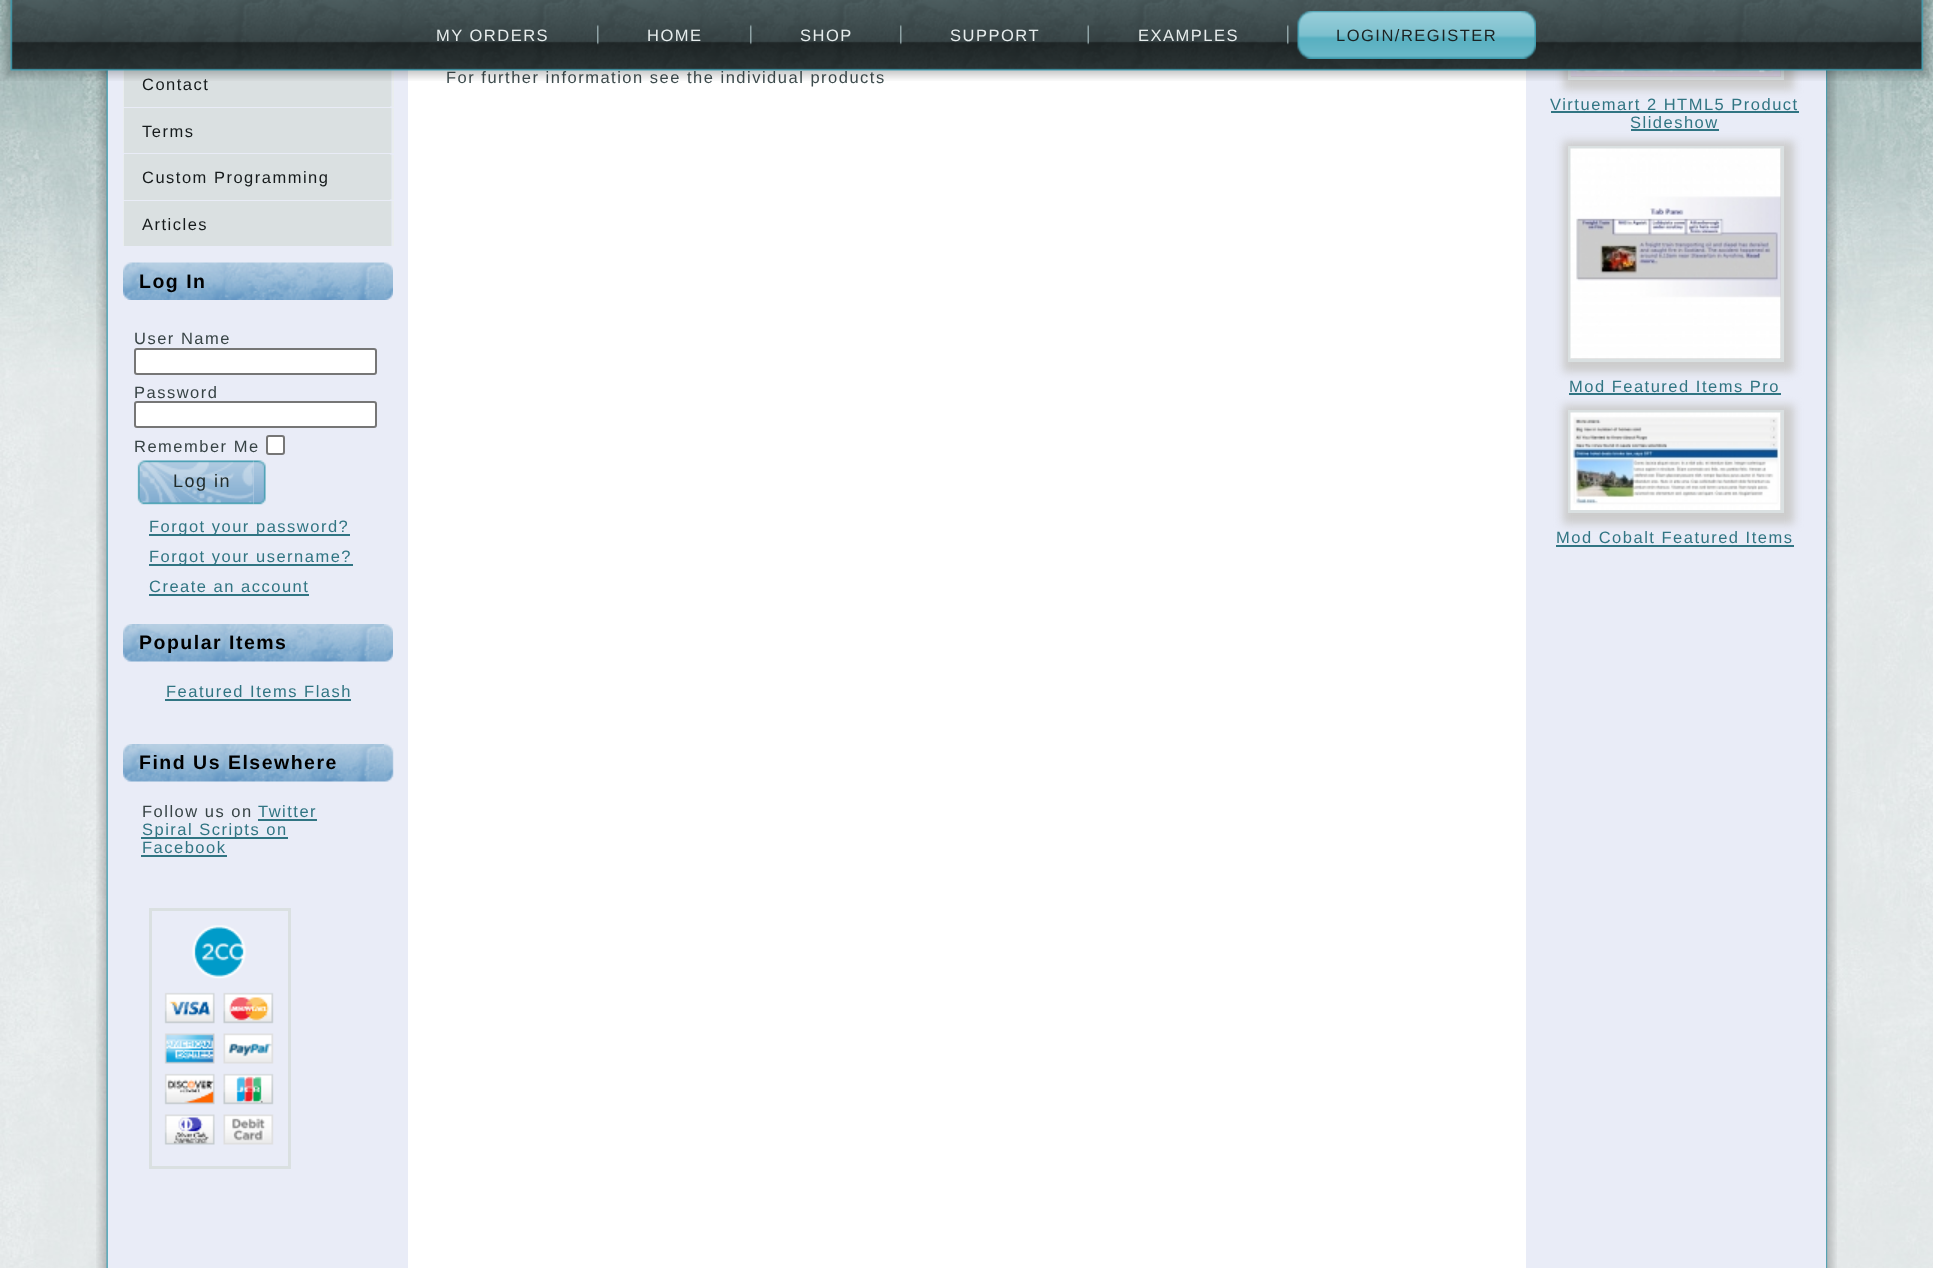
<svg xmlns="http://www.w3.org/2000/svg" width="1933" height="1268" viewBox="0 0 1933 1268">
  <rect width="100%" height="100%" fill="#fff"/>
  <image x="0" y="373" width="1933" height="895" href="img/1.png"/>
  <image x="0" y="0" width="1933" height="373" href="img/2.png"/>
  <image x="1911" y="0" width="22" height="81" href="img/4.png"/>
  <image x="96" y="70" width="1430" height="1198" href="img/12.png"/>
  <image x="1826" y="70" width="11" height="1198" href="img/13.png"/>
  <path d="M108 70h300v1198H108z" fill="#e9ecf7"/>
  <path d="M392 62h2v45H392z" fill="#e9edee"/>
  <path d="M123 62h1v45H123z" fill="#e9edee"/>
  <path d="M124 70h266v37H124z" fill="#dae0e1"/>
  <image x="390" y="70" width="2" height="37" href="img/14.png"/>
  <path d="M392 108h2v45H392z" fill="#e9edee"/>
  <path d="M123 108h1v45H123z" fill="#e9edee"/>
  <path d="M124 108h266v45H124z" fill="#dae0e1"/>
  <image x="390" y="108" width="2" height="45" href="img/15.png"/>
  <path d="M392 155h2v45H392z" fill="#e9edee"/>
  <path d="M123 155h1v45H123z" fill="#e9edee"/>
  <path d="M124 154h266v46H124z" fill="#dae0e1"/>
  <image x="390" y="154" width="2" height="46" href="img/16.png"/>
  <path d="M392 201h2v45H392z" fill="#e9edee"/>
  <path d="M123 201h1v45H123z" fill="#e9edee"/>
  <path d="M124 201h266v45H124z" fill="#dae0e1"/>
  <image x="390" y="201" width="2" height="45" href="img/15.png"/>
  <image x="123" y="262" width="261" height="38" href="img/17.png"/>
  <image x="384" y="262" width="9" height="38" href="img/18.png"/>
  <rect x="135" y="349" width="241" height="25" rx="2" fill="#fff" stroke="#767676" stroke-width="2"/>
  <rect x="135" y="402" width="241" height="25" rx="2" fill="#fff" stroke="#767676" stroke-width="2"/>
  <rect x="267" y="436" width="17" height="18" rx="2" fill="#fff" stroke="#767676" stroke-width="2"/>
  <image x="137" y="460" width="117" height="45" href="img/19.png"/>
  <image x="253" y="460" width="13" height="45" href="img/20.png"/>
  <path d="M149 534h201v2H149z" fill="#317583"/>
  <path d="M149 564h204v2H149z" fill="#317583"/>
  <path d="M149 594h160v2H149z" fill="#317583"/>
  <image x="123" y="624" width="261" height="38" href="img/21.png"/>
  <image x="384" y="624" width="9" height="38" href="img/22.png"/>
  <path d="M165 699h186v2H165z" fill="#317583"/>
  <image x="123" y="744" width="261" height="38" href="img/21.png"/>
  <image x="384" y="743" width="10" height="39" href="img/23.png"/>
  <path d="M258 819h59v2H258z" fill="#317583"/>
  <path d="M141 837h147v2H141z" fill="#317583"/>
  <path d="M141 855h86v2H141z" fill="#317583"/>
  <path d="M150.5 909.5h139v258H150.5z" fill="none" stroke="#dae0e1" stroke-width="3"/>
  <image x="164" y="925" width="110" height="220" href="img/24.png"/>
  <path d="M1526 70h300v1198H1526z" fill="#e9ecf7"/>
  <path d="M1563 -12h231v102H1563z" fill="#ccc" filter="blur(4px)"/>
  <path d="M1569.5 -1.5h213v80H1569.5z" fill="none" stroke="#dae0e1" stroke-width="3"/>
  <image x="1570" y="70" width="211" height="7" href="img/25.png"/>
  <path d="M1551 111h248v2H1551z" fill="#317583"/>
  <path d="M1631 129h88v2H1631z" fill="#317583"/>
  <path d="M1563 141h231v231H1563z" fill="#ccc" filter="blur(4px)"/>
  <path d="M1569.5 147.5h213v213H1569.5z" fill="none" stroke="#dae0e1" stroke-width="3"/>
  <image x="1570" y="148" width="211" height="211" href="img/26.png"/>
  <path d="M1569 393h212v2H1569z" fill="#317583"/>
  <path d="M1563 405h231v119H1563z" fill="#ccc" filter="blur(4px)"/>
  <path d="M1569.5 411.5h213v100H1569.5z" fill="none" stroke="#dae0e1" stroke-width="3"/>
  <image x="1570" y="412" width="211" height="98" href="img/27.png"/>
  <path d="M1556 545h238v2H1556z" fill="#317583"/>
  <g font-family="Liberation Sans" font-size="16.5" letter-spacing="1.5" fill="#161b1c">
    <text x="142" y="90">Contact</text>
    <text x="142" y="137">Terms</text>
    <text x="142" y="183">Custom Programming</text>
    <text x="142" y="230">Articles</text>
  </g>
  <text x="139" y="288" font-family="Liberation Sans" font-size="19.5" font-weight="bold" letter-spacing="1.5" fill="#000">Log In</text>
  <g font-family="Liberation Sans" font-size="16.5" letter-spacing="1.5" fill="#374345">
    <text x="134" y="344">User Name</text>
    <text x="134" y="398">Password</text>
    <text x="134" y="452">Remember Me</text>
  </g>
  <text x="173" y="487" font-family="Liberation Sans" font-size="18" letter-spacing="1.5" fill="#222d2c">Log in</text>
  <g font-family="Liberation Sans" font-size="16.5" letter-spacing="1.5" fill="#317583">
    <text x="149" y="532">Forgot your password?</text>
    <text x="149" y="562">Forgot your username?</text>
    <text x="149" y="592">Create an account</text>
  </g>
  <text x="139" y="649" font-family="Liberation Sans" font-size="19.5" font-weight="bold" letter-spacing="1.5" fill="#000">Popular Items</text>
  <text x="166" y="697" font-family="Liberation Sans" font-size="16.5" letter-spacing="1.5" fill="#317583">Featured Items Flash</text>
  <text x="139" y="769" font-family="Liberation Sans" font-size="19.5" font-weight="bold" letter-spacing="1.5" fill="#000">Find Us Elsewhere</text>
  <text x="142" y="817" font-family="Liberation Sans" font-size="16.5" letter-spacing="1.5" fill="#374345">Follow us on</text>
  <g font-family="Liberation Sans" font-size="16.5" letter-spacing="1.5" fill="#317583">
    <text x="258" y="817">Twitter</text>
    <text x="142" y="835">Spiral Scripts on</text>
    <text x="142" y="853">Facebook</text>
  </g>
  <text x="446" y="83" font-family="Liberation Sans" font-size="16.5" letter-spacing="1.5" fill="#3e4c4e">For further information see the individual products</text>
  <image x="0" y="0" width="1911" height="81" href="img/3.png"/>
  <image x="1297" y="11" width="224" height="48" href="img/10.png"/>
  <text x="1336" y="41" font-family="Liberation Sans" font-size="16.5" letter-spacing="1.5" fill="#1b2323">LOGIN/REGISTER</text>
  <image x="1521" y="11" width="15" height="48" href="img/11.png"/>
  <image x="1287" y="24" width="2" height="21" href="img/9.png"/>
  <text x="1138" y="41" font-family="Liberation Sans" font-size="16.5" letter-spacing="1.5" fill="#e6ecec">EXAMPLES</text>
  <image x="1087" y="24" width="2" height="21" href="img/8.png"/>
  <text x="950" y="41" font-family="Liberation Sans" font-size="16.5" letter-spacing="1.5" fill="#e6ecec">SUPPORT</text>
  <image x="900" y="24" width="2" height="21" href="img/7.png"/>
  <text x="800" y="41" font-family="Liberation Sans" font-size="16.5" letter-spacing="1.5" fill="#e6ecec">SHOP</text>
  <image x="750" y="24" width="2" height="21" href="img/6.png"/>
  <text x="647" y="41" font-family="Liberation Sans" font-size="16.5" letter-spacing="1.5" fill="#e6ecec">HOME</text>
  <image x="597" y="24" width="2" height="21" href="img/5.png"/>
  <text x="436" y="41" font-family="Liberation Sans" font-size="16.5" letter-spacing="1.5" fill="#e6ecec">MY ORDERS</text>
  <g font-family="Liberation Sans" font-size="16.5" letter-spacing="1.5" fill="#317583">
    <text x="1550" y="110">Virtuemart 2 HTML5 Product</text>
    <text x="1630" y="128">Slideshow</text>
    <text x="1569" y="392">Mod Featured Items Pro</text>
    <text x="1556" y="543">Mod Cobalt Featured Items</text>
  </g>
</svg>
